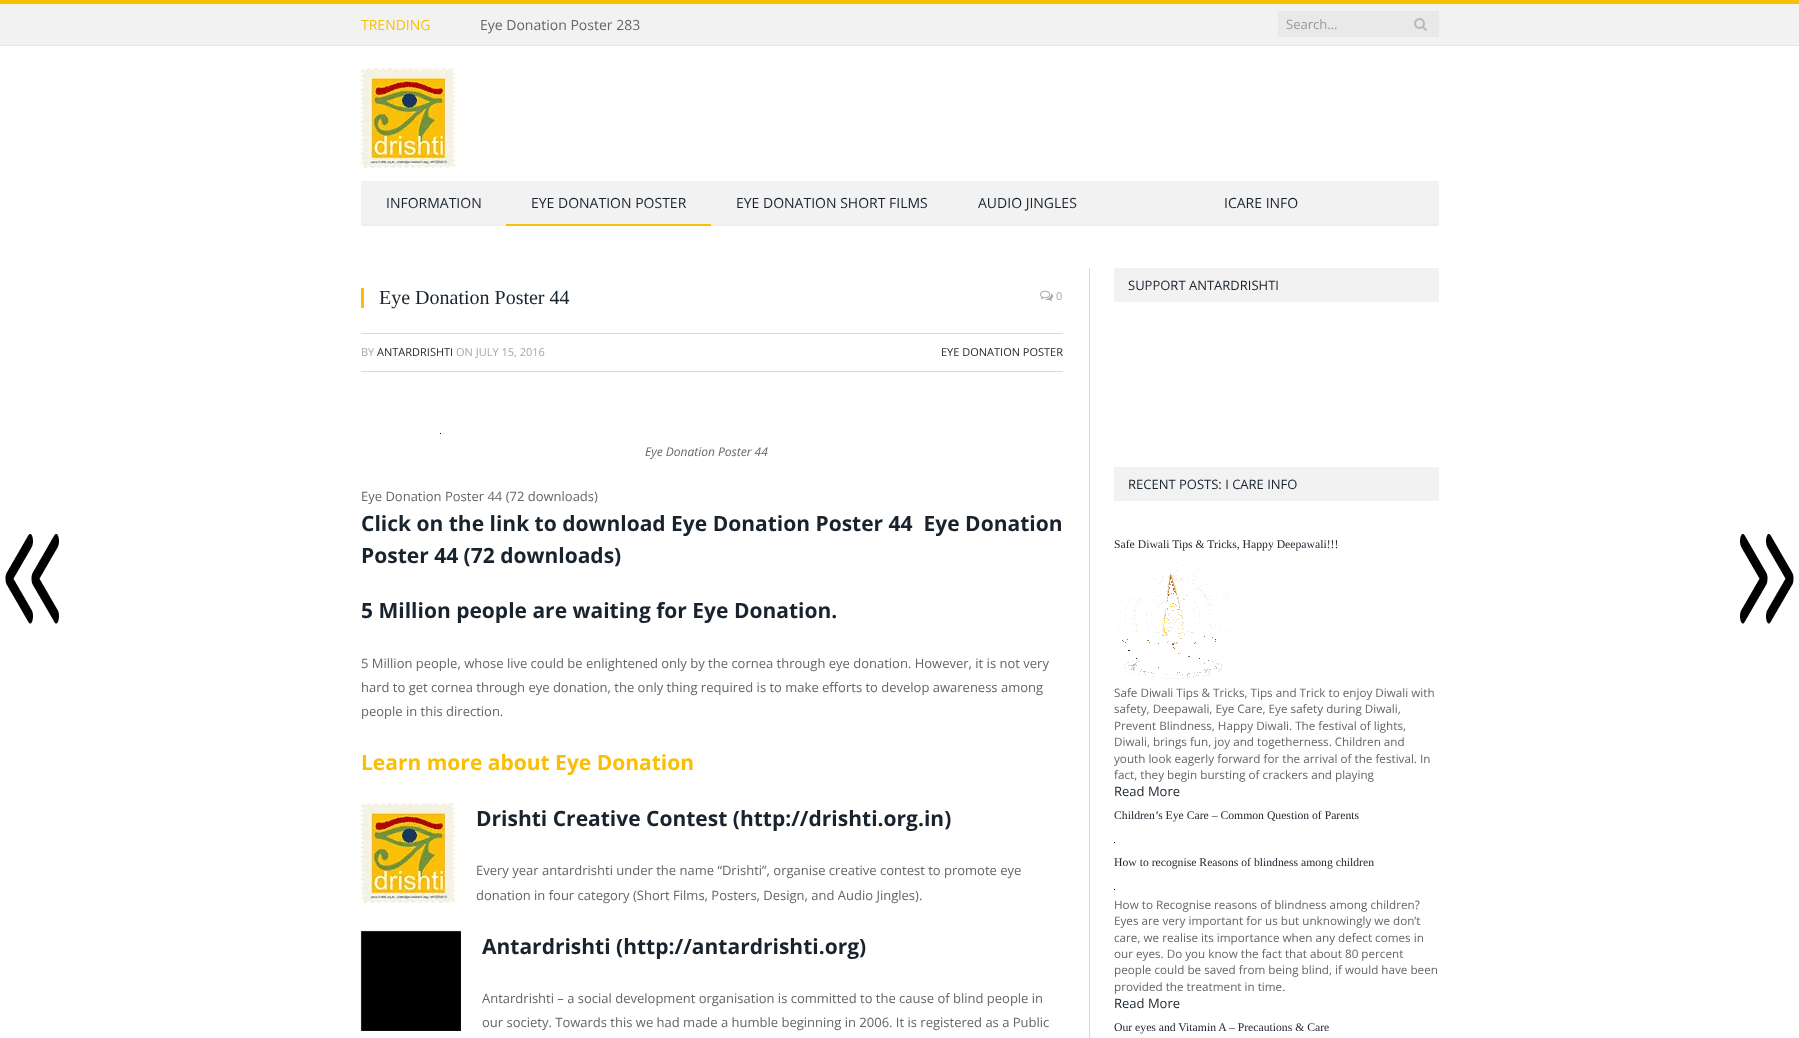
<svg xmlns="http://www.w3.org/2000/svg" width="1799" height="1038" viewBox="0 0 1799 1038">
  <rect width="100%" height="100%" fill="#fff"/>
  <path d="M0 4h1799v41H0z" fill="#f2f2f2"/>
  <path d="M0 0h1799v4H0z" fill="#fabe06"/>
  <path d="M0 45h1799v1H0z" fill="#e7e7e7"/>
  <path d="M1278 11h161v26H1278z" fill="#e9e9e9"/>
  <image x="1414" y="18" width="13" height="13" href="img/1.png"/>
  <image x="361" y="68" width="94" height="100" href="img/2.png"/>
  <path d="M361 181h1078v43H361z" fill="#f2f2f2"/>
  <path d="M361 224h1078v2H361z" fill="#eee"/>
  <path d="M506 224h205v2H506z" fill="#fabe06"/>
  <path d="M361 288h3v20H361z" fill="#fabe06"/>
  <image x="1040" y="290" width="13" height="11" href="img/3.png"/>
  <path d="M361 333h702v1H361z" fill="#d9d9d9"/>
  <path d="M361 371h702v1H361z" fill="#d9d9d9"/>
  <path d="M440 433h1v1H440z" fill="#000"/>
  <image x="5" y="534" width="54" height="90" href="img/4.png"/>
  <image x="1740" y="534" width="54" height="90" href="img/5.png"/>
  <image x="361" y="803" width="94" height="100" href="img/2.png"/>
  <image x="360" y="930" width="101" height="101" href="img/6.png"/>
  <path d="M1089 268h1v770H1089z" fill="#d9d9d9"/>
  <path d="M1114 268h325v34H1114z" fill="#f2f2f2"/>
  <path d="M1114 467h325v34H1114z" fill="#f2f2f2"/>
  <image x="1114" y="559" width="119" height="120" href="img/7.png"/>
  <path d="M1114 842h1v1H1114z" fill="#000"/>
  <path d="M1114 889h1v1H1114z" fill="#000"/>
  <text x="361" y="30" font-family="Open Sans" font-size="14" fill="#fabe06">TRENDING</text>
  <text x="480" y="30" font-family="Open Sans" font-size="14" fill="#656565">Eye Donation Poster 283</text>
  <text x="1286" y="29" font-family="Open Sans" font-size="13" fill="#999">Search...</text>
  <g font-family="Open Sans" font-size="14" fill="#19232d">
    <text x="386" y="208">INFORMATION</text>
    <text x="531" y="208">EYE DONATION POSTER</text>
    <text x="736" y="208">EYE DONATION SHORT FILMS</text>
    <text x="978" y="208">AUDIO JINGLES</text>
    <text x="1224" y="208">ICARE INFO</text>
  </g>
  <text x="379" y="304" font-family="Liberation Serif" font-size="20" fill="#19232d">Eye Donation Poster 44</text>
  <g font-family="Open Sans" font-size="11" fill="#a6a6a6">
    <text x="1056" y="300">0</text>
    <text x="361" y="356">BY</text>
  </g>
  <text x="377" y="356" font-family="Open Sans" font-size="11" fill="#19232d">ANTARDRISHTI</text>
  <text x="456" y="356" font-family="Open Sans" font-size="11" fill="#a6a6a6">ON JULY 15, 2016</text>
  <text x="941" y="356" font-family="Open Sans" font-size="11" fill="#19232d">EYE DONATION POSTER</text>
  <text x="645" y="456" font-family="Open Sans" font-size="12" font-style="italic" fill="#656565">Eye Donation Poster 44</text>
  <text x="361" y="501" font-family="Open Sans" font-size="13" fill="#656565">Eye Donation Poster 44 (72 downloads)</text>
  <g font-family="Open Sans" font-size="21" font-weight="bold" fill="#19232d">
    <text x="361" y="531" xml:space="preserve">Click on the link to download Eye Donation Poster 44  Eye Donation</text>
    <text x="361" y="563">Poster 44 (72 downloads)</text>
    <text x="361" y="618">5 Million people are waiting for Eye Donation.</text>
  </g>
  <g font-family="Open Sans" font-size="13" fill="#656565">
    <text x="361" y="668">5 Million people, whose live could be enlightened only by the cornea through eye donation. However, it is not very</text>
    <text x="361" y="692">hard to get cornea through eye donation, the only thing required is to make efforts to develop awareness among</text>
    <text x="361" y="716">people in this direction.</text>
  </g>
  <text x="361" y="770" font-family="Open Sans" font-size="21" font-weight="bold" fill="#fabe06">Learn more about Eye Donation</text>
  <text x="476" y="826" font-family="Open Sans" font-size="21" font-weight="bold" fill="#19232d">Drishti Creative Contest (http://drishti.org.in)</text>
  <g font-family="Open Sans" font-size="13" fill="#656565">
    <text x="476" y="875">Every year antardrishti under the name “Drishti”, organise creative contest to promote eye</text>
    <text x="476" y="900">donation in four category (Short Films, Posters, Design, and Audio Jingles).</text>
  </g>
  <text x="482" y="954" font-family="Open Sans" font-size="21" font-weight="bold" fill="#19232d">Antardrishti (http://antardrishti.org)</text>
  <g font-family="Open Sans" font-size="13" fill="#656565">
    <text x="482" y="1003">Antardrishti – a social development organisation is committed to the cause of blind people in</text>
    <text x="482" y="1027">our society. Towards this we had made a humble beginning in 2006. It is registered as a Public</text>
  </g>
  <g font-family="Open Sans" font-size="13" fill="#19232d">
    <text x="1128" y="290">SUPPORT ANTARDRISHTI</text>
    <text x="1128" y="489">RECENT POSTS: I CARE INFO</text>
  </g>
  <text x="1114" y="548" font-family="Liberation Serif" font-size="11.7" fill="#19232d">Safe Diwali Tips &amp; Tricks, Happy Deepawali!!!</text>
  <g font-family="Open Sans" font-size="11.7" fill="#656565">
    <text x="1114" y="697">Safe Diwali Tips &amp; Tricks, Tips and Trick to enjoy Diwali with</text>
    <text x="1114" y="713">safety, Deepawali, Eye Care, Eye safety during Diwali,</text>
    <text x="1114" y="730">Prevent Blindness, Happy Diwali. The festival of lights,</text>
    <text x="1114" y="746">Diwali, brings fun, joy and togetherness. Children and</text>
    <text x="1114" y="763">youth look eagerly forward for the arrival of the festival. In</text>
    <text x="1114" y="779">fact, they begin bursting of crackers and playing</text>
  </g>
  <text x="1114" y="796" font-family="Open Sans" font-size="13" fill="#19232d">Read More</text>
  <g font-family="Liberation Serif" font-size="11.7" fill="#19232d">
    <text x="1114" y="819">Children’s Eye Care – Common Question of Parents</text>
    <text x="1114" y="866">How to recognise Reasons of blindness among children</text>
  </g>
  <g font-family="Open Sans" font-size="11.7" fill="#656565">
    <text x="1114" y="909">How to Recognise reasons of blindness among children?</text>
    <text x="1114" y="925">Eyes are very important for us but unknowingly we don’t</text>
    <text x="1114" y="942">care, we realise its importance when any defect comes in</text>
    <text x="1114" y="958">our eyes. Do you know the fact that about 80 percent</text>
    <text x="1114" y="974">people could be saved from being blind, if would have been</text>
    <text x="1114" y="991">provided the treatment in time.</text>
  </g>
  <text x="1114" y="1008" font-family="Open Sans" font-size="13" fill="#19232d">Read More</text>
  <text x="1114" y="1031" font-family="Liberation Serif" font-size="11.7" fill="#19232d">Our eyes and Vitamin A – Precautions &amp; Care</text>
</svg>
